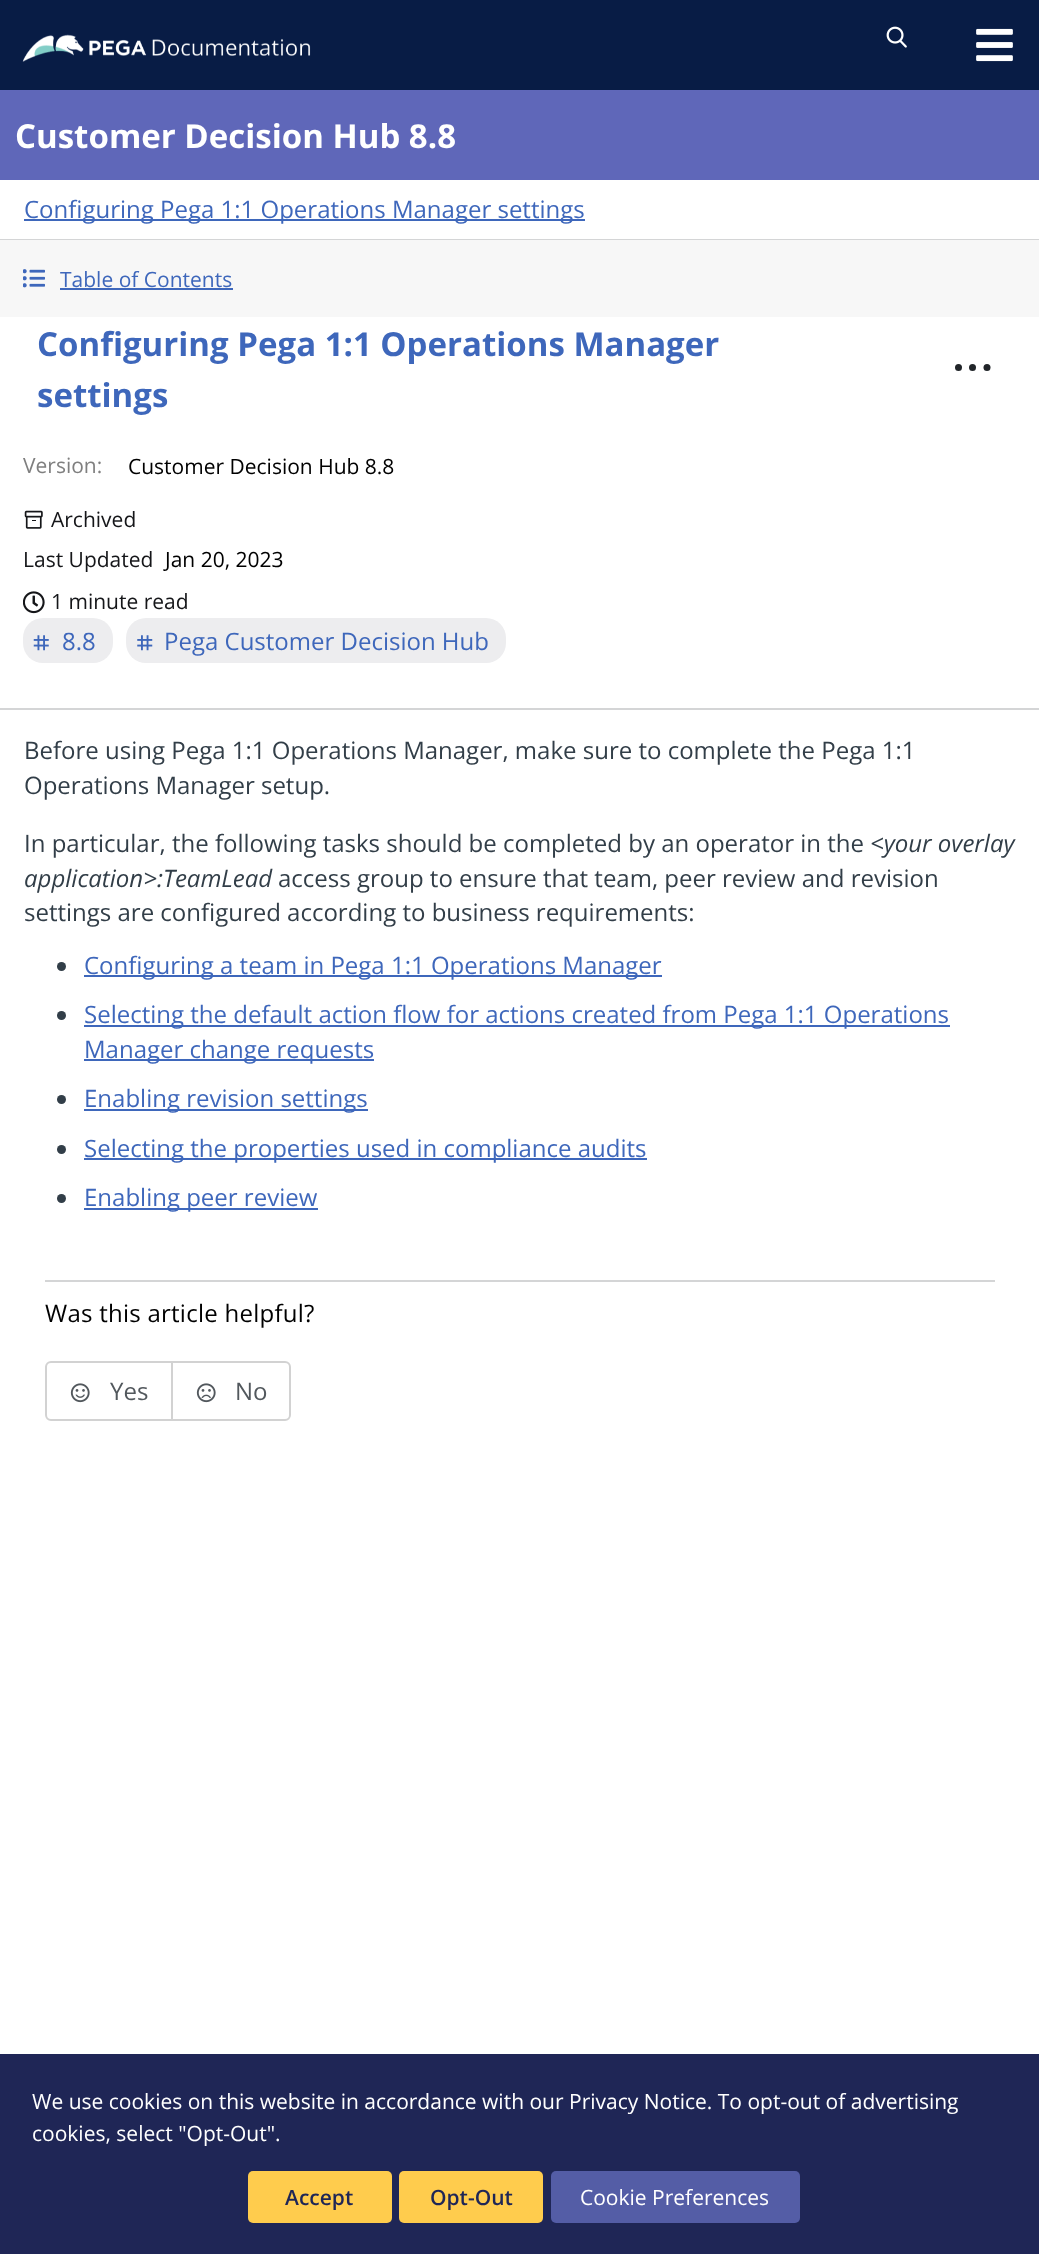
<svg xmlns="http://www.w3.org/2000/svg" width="1039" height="2254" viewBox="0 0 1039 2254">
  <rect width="100%" height="100%" fill="#fff"/>
  <path d="M0 0h1039v90H0z" fill="#081c45"/>
  <image x="22" y="34" width="289" height="28" href="img/1.png"/>
  <image x="886" y="26" width="21" height="22" href="img/2.png"/>
  <image x="976" y="28" width="37" height="34" href="img/3.png"/>
  <path d="M0 90h1039v90H0z" fill="#5f67b9"/>
  <path d="M0 239h1039v1H0z" fill="#d4d5d6"/>
  <path d="M24 219h561v2H24z" fill="#3e67bb"/>
  <path d="M0 240h1039v77H0z" fill="#f7f7f7"/>
  <image x="23" y="269" width="22" height="19" href="img/4.png"/>
  <path d="M60 288h173v2H60z" fill="#3e67bb"/>
  <path d="M0 708h1039v2H0z" fill="#d4d5d6"/>
  <circle cx="958.5" cy="367.5" r="3.5" fill="#212529"/>
  <circle cx="972.5" cy="367.5" r="3.5" fill="#212529"/>
  <circle cx="987" cy="367.5" r="3.5" fill="#212529"/>
  <image x="24" y="510" width="19" height="19" href="img/5.png"/>
  <image x="23" y="591" width="22" height="23" href="img/6.png"/>
  <rect x="23" y="618" width="90" height="45" rx="20" fill="#ededef"/>
  <image x="33" y="635" width="16" height="16" href="img/7.png"/>
  <rect x="126" y="618" width="380" height="45" rx="20" fill="#ededef"/>
  <image x="137" y="635" width="16" height="16" href="img/8.png"/>
  <circle cx="61.5" cy="966.5" r="4.5" fill="#323e48"/>
  <path d="M84 975h578v2H84z" fill="#3e67bb"/>
  <circle cx="61.5" cy="1015.5" r="4.5" fill="#323e48"/>
  <path d="M84 1025h866v2H84z" fill="#3e67bb"/>
  <path d="M84 1059h290v2H84z" fill="#3e67bb"/>
  <circle cx="61.5" cy="1099.5" r="4.5" fill="#323e48"/>
  <path d="M84 1109h284v2H84z" fill="#3e67bb"/>
  <circle cx="61.5" cy="1149.5" r="4.5" fill="#323e48"/>
  <path d="M84 1158h563v2H84z" fill="#3e67bb"/>
  <circle cx="61.5" cy="1198.5" r="4.5" fill="#323e48"/>
  <path d="M84 1208h234v2H84z" fill="#3e67bb"/>
  <path d="M45 1280h950v2H45z" fill="#d4d5d6"/>
  <rect x="46" y="1362" width="244" height="58" rx="5" fill="none" stroke="#d2d2d2" stroke-width="2"/>
  <path d="M171 1362h2v57H171z" fill="#d2d2d2"/>
  <image x="70" y="1383" width="20" height="20" href="img/9.png"/>
  <image x="196" y="1383" width="20" height="20" href="img/10.png"/>
  <path d="M0 2054h1039v200H0z" fill="#1f2656"/>
  <rect x="248" y="2171" width="144" height="52" rx="5" fill="#ffcc4d"/>
  <rect x="399" y="2171" width="144" height="52" rx="5" fill="#ffcc4d"/>
  <rect x="551" y="2171" width="249" height="52" rx="5" fill="#545da6"/>
  <text x="15" y="148" font-family="Open Sans" font-size="33" font-weight="bold" fill="#fff">Customer Decision Hub 8.8</text>
  <text x="24" y="218" font-family="Open Sans" font-size="24" fill="#3e67bb">Configuring Pega 1:1 Operations Manager settings</text>
  <text x="60" y="287" font-family="Open Sans" font-size="21" fill="#3e67bb">Table of Contents</text>
  <g font-family="Open Sans" font-size="33" font-weight="bold" fill="#3e67bb">
    <text x="37" y="356">Configuring Pega 1:1 Operations Manager</text>
    <text x="37" y="407">settings</text>
  </g>
  <text x="23" y="473" font-family="Open Sans" font-size="21" fill="#7f7f7f">Version:</text>
  <text x="128" y="474" font-family="Open Sans" font-size="21" fill="#000">Customer Decision Hub 8.8</text>
  <g font-family="Open Sans" font-size="21" fill="#151619">
    <text x="51" y="527">Archived</text>
    <text x="23" y="567">Last Updated</text>
  </g>
  <text x="165" y="567" font-family="Open Sans" font-size="21" fill="#000">Jan 20, 2023</text>
  <text x="51" y="609" font-family="Open Sans" font-size="21" fill="#151619">1 minute read</text>
  <g font-family="Open Sans" font-size="24" fill="#3e67bb">
    <text x="62" y="650">8.8</text>
    <text x="164" y="650">Pega Customer Decision Hub</text>
  </g>
  <g font-family="Open Sans" font-size="24" fill="#323e48">
    <text x="24" y="759">Before using Pega 1:1 Operations Manager, make sure to complete the Pega 1:1</text>
    <text x="24" y="794">Operations Manager setup.</text>
    <text x="24" y="852">In particular, the following tasks should be completed by an operator in the</text>
  </g>
  <g font-family="Open Sans" font-size="24" font-style="italic" fill="#323e48">
    <text x="870" y="852">&lt;your overlay</text>
    <text x="24" y="887">application&gt;:TeamLead</text>
  </g>
  <g font-family="Open Sans" font-size="24" fill="#323e48">
    <text x="278" y="887">access group to ensure that team, peer review and revision</text>
    <text x="24" y="921">settings are configured according to business requirements:</text>
  </g>
  <g font-family="Open Sans" font-size="24" fill="#3e67bb">
    <text x="84" y="974">Configuring a team in Pega 1:1 Operations Manager</text>
    <text x="84" y="1023">Selecting the default action flow for actions created from Pega 1:1 Operations</text>
    <text x="84" y="1058">Manager change requests</text>
    <text x="84" y="1107">Enabling revision settings</text>
    <text x="84" y="1157">Selecting the properties used in compliance audits</text>
    <text x="84" y="1206">Enabling peer review</text>
  </g>
  <text x="45" y="1322" font-family="Open Sans" font-size="24" letter-spacing="0.25" fill="#000">Was this article helpful?</text>
  <g font-family="Open Sans" font-size="24" fill="#52585d">
    <text x="110" y="1400">Yes</text>
    <text x="235" y="1400">No</text>
  </g>
  <g font-family="Open Sans" font-size="21" fill="#fff">
    <text x="32" y="2109">We use cookies on this website in accordance with our Privacy Notice. To opt-out of advertising</text>
    <text x="32" y="2141">cookies, select "Opt-Out".</text>
  </g>
  <g font-family="Open Sans" font-size="21" font-weight="600" fill="#1f2656">
    <text x="285" y="2205">Accept</text>
    <text x="430" y="2205">Opt-Out</text>
  </g>
  <text x="580" y="2205" font-family="Open Sans" font-size="21" fill="#fff">Cookie Preferences</text>
</svg>
